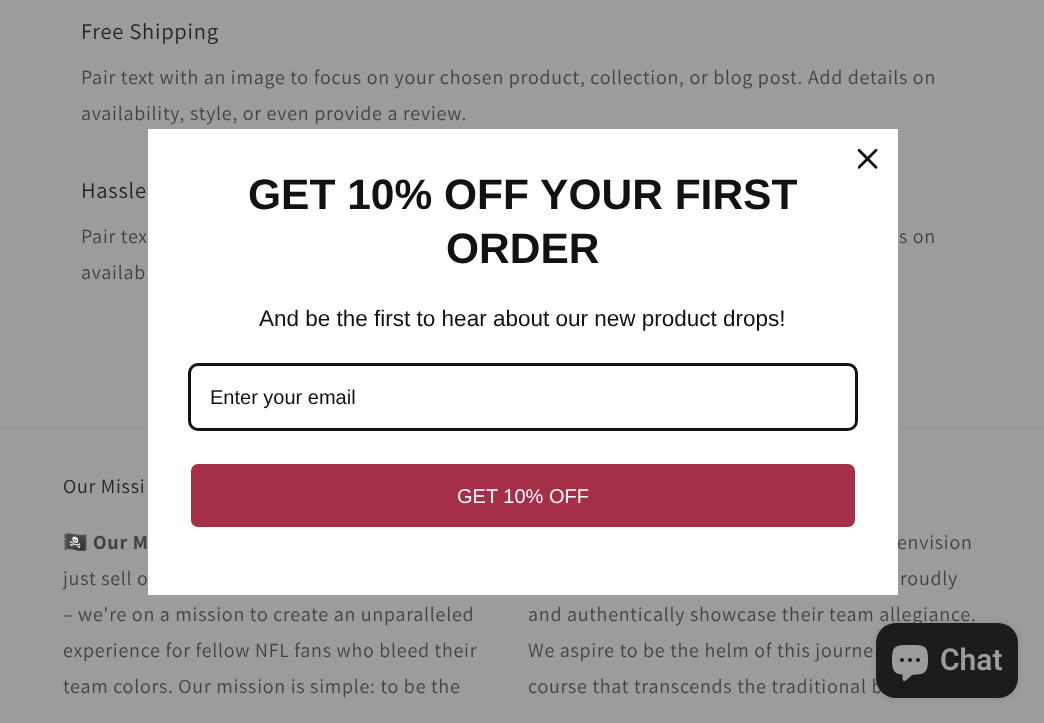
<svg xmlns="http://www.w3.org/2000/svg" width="1044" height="723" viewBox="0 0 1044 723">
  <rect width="100%" height="100%" fill="#9c9c9c"/>
  <path d="M0 428h1044v1H0z" fill="#929292"/>
  <path d="M148 129h750v466H148z" fill="#fff"/>
  <image x="858" y="149" width="20" height="20" href="img/1.png"/>
  <rect x="189.5" y="364.5" width="667" height="65" rx="8.5" fill="none" stroke="#121212" stroke-width="3"/>
  <rect x="189.5" y="462.5" width="667" height="66" rx="8.5" fill="#a52f49" stroke="#fff" stroke-width="3"/>
  <rect x="876" y="623" width="142" height="75" rx="20" fill="#1c1c1c26" filter="blur(3px)"/>
  <text x="81" y="39" font-family="Assistant" font-size="22.5" letter-spacing="0.75" fill="#252525">Free Shipping</text>
  <g font-family="Assistant" font-size="20" letter-spacing="0.75" fill="#434343">
    <text x="81" y="84">Pair text with an image to focus on your chosen product, collection, or blog post. Add details on</text>
    <text x="81" y="120">availability, style, or even provide a review.</text>
  </g>
  <text x="81" y="198" font-family="Assistant" font-size="22.5" letter-spacing="0.75" fill="#252525">Hassle</text>
  <g font-family="Assistant" font-size="20" letter-spacing="0.75" fill="#434343">
    <text x="81" y="243">Pair tex</text>
    <text x="899" y="243">s on</text>
    <text x="81" y="279">availab</text>
  </g>
  <g font-family="Liberation Sans" font-size="42.5" font-weight="bold" fill="#121212">
    <text x="248" y="209">GET 10% OFF YOUR FIRST</text>
    <text x="446" y="263">ORDER</text>
  </g>
  <text x="259" y="326" font-family="Liberation Sans" font-size="22.5" fill="#121212">And be the first to hear about our new product drops!</text>
  <text x="210" y="404" font-family="Liberation Sans" font-size="20" fill="#121212">Enter your email</text>
  <text x="457" y="503" font-family="Liberation Sans" font-size="20" fill="#fff">GET 10% OFF</text>
  <text x="63" y="493" font-family="Assistant" font-size="20" letter-spacing="0.75" fill="#252525">Our Missi</text>
  <text x="63" y="549" font-family="Noto Color Emoji" font-size="20" letter-spacing="0.75" fill="#434343">🏴‍☠️</text>
  <text x="93" y="549" font-family="Assistant" font-size="20" font-weight="bold" letter-spacing="0.75" fill="#434343">Our M</text>
  <g font-family="Assistant" font-size="20" letter-spacing="0.75" fill="#434343">
    <text x="63" y="585">just sell o</text>
    <text x="63" y="621">– we're on a mission to create an unparalleled</text>
    <text x="63" y="657">experience for fellow NFL fans who bleed their</text>
    <text x="63" y="693">team colors. Our mission is simple: to be the</text>
    <text x="897" y="549">envision</text>
    <text x="900" y="585">roudly</text>
    <text x="528" y="621">and authentically showcase their team allegiance.</text>
    <text x="528" y="657">We aspire to be the helm of this journe</text>
    <text x="528" y="693">course that transcends the traditional b</text>
  </g>
  <rect x="876" y="623" width="142" height="75" rx="20" fill="#1c1c1c"/>
  <image x="892" y="645" width="36" height="36" href="img/2.png"/>
  <text x="940" y="670" font-family="Roboto" font-size="30" font-weight="600" fill="#9c9c9c">Chat</text>
</svg>
